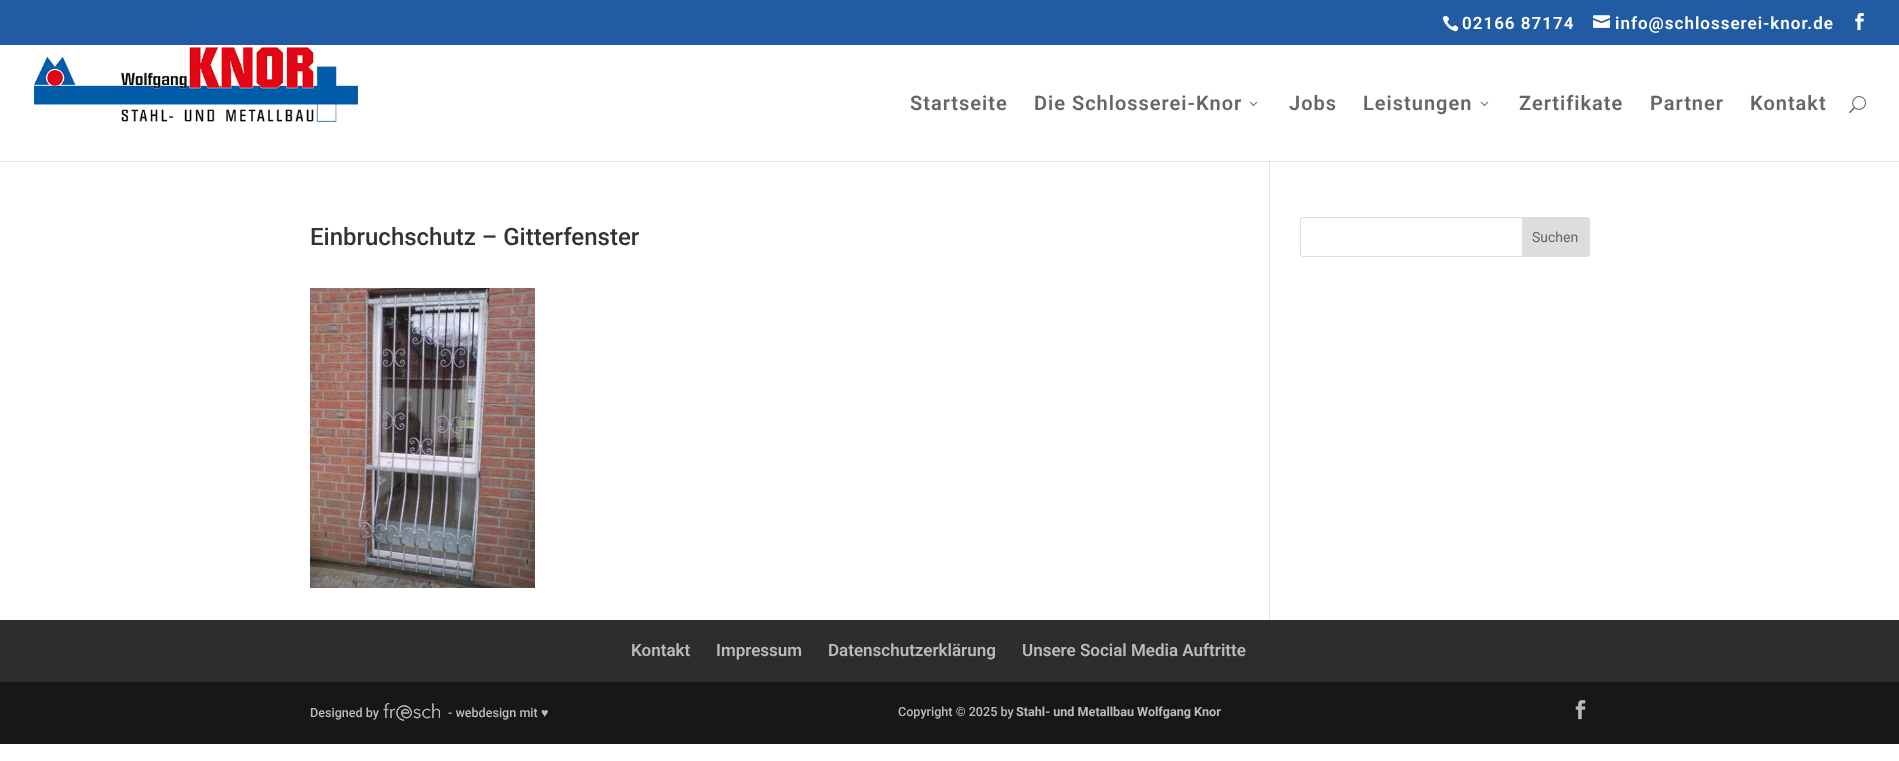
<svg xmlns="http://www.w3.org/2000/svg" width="1899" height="761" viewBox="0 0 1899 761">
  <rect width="100%" height="100%" fill="#fff"/>
  <path d="M0 161h1899v1H0z" fill="#e6e6e6"/>
  <path d="M0 0h1899v45H0z" fill="#215ba4"/>
  <image x="1442" y="15" width="17" height="17" href="img/1.png"/>
  <image x="1593" y="15" width="17" height="13" href="img/2.png"/>
  <image x="1855" y="13" width="9" height="18" href="img/3.png"/>
  <path d="M1269 159h1v461H1269z" fill="#e2e2e2"/>
  <path d="M1269 159h1v2H1269z" fill="#fff"/>
  <image x="34" y="47" width="324" height="75" href="img/4.png"/>
  <image x="1249" y="101" width="9" height="5" href="img/5.png"/>
  <image x="1480" y="101" width="9" height="5" href="img/5.png"/>
  <image x="1849" y="96" width="17" height="18" href="img/6.png"/>
  <path d="M1269 161h1v1H1269z" fill="#cbcbcb"/>
  <image x="310" y="288" width="225" height="300" href="img/7.png"/>
  <rect x="1300.5" y="217.5" width="289" height="39" rx="2.5" fill="none" stroke="#ddd"/>
  <path d="M1522.5 217.5H1587C1588.5 217.5 1589.5 218.5 1589.5 220V254C1589.5 255.5 1588.5 256.5 1587 256.5H1522.5Z" fill="#ddd" stroke="#ddd"/>
  <path d="M0 620h1899v62H0z" fill="#2d2d2d"/>
  <path d="M0 682h1899v62H0z" fill="#171717"/>
  <image x="383" y="703" width="57" height="18" href="img/8.png"/>
  <image x="1575" y="700" width="11" height="20" href="img/9.png"/>
  <g font-family="Roboto" font-size="17" font-weight="600" letter-spacing="1" fill="#fff">
    <text x="1462" y="29">02166 87174</text>
    <text x="1615" y="29">info@schlosserei-knor.de</text>
  </g>
  <g font-family="Roboto" font-size="20" font-weight="600" letter-spacing="1" fill="#666">
    <text x="910" y="110">Startseite</text>
    <text x="1034" y="110">Die Schlosserei-Knor</text>
    <text x="1289" y="110">Jobs</text>
    <text x="1363" y="110">Leistungen</text>
    <text x="1519" y="110">Zertifikate</text>
    <text x="1650" y="110">Partner</text>
    <text x="1750" y="110">Kontakt</text>
  </g>
  <text x="310" y="245" font-family="Roboto" font-size="24" font-weight="500" fill="#333">Einbruchschutz – Gitterfenster</text>
  <text x="1532" y="242" font-family="Roboto" font-size="14" fill="#666">Suchen</text>
  <g font-family="Roboto" font-size="17" font-weight="600" fill="#bbb">
    <text x="631" y="656">Kontakt</text>
    <text x="716" y="656">Impressum</text>
    <text x="828" y="656">Datenschutzerklärung</text>
    <text x="1022" y="656">Unsere Social Media Auftritte</text>
  </g>
  <g font-family="Roboto" font-size="12.6" font-weight="500" fill="#bbb">
    <text x="310" y="717">Designed by</text>
    <text x="448" y="717">- webdesign mit</text>
  </g>
  <text x="541" y="717" font-family="Liberation Sans" font-size="12.6" fill="#bbb">♥</text>
  <text x="898" y="716" font-family="Roboto" font-size="12.6" font-weight="500" fill="#bbb">Copyright © 2025 by</text>
  <text x="1016" y="716" font-family="Roboto" font-size="12.6" font-weight="bold" fill="#bbb">Stahl- und Metallbau Wolfgang Knor</text>
</svg>
